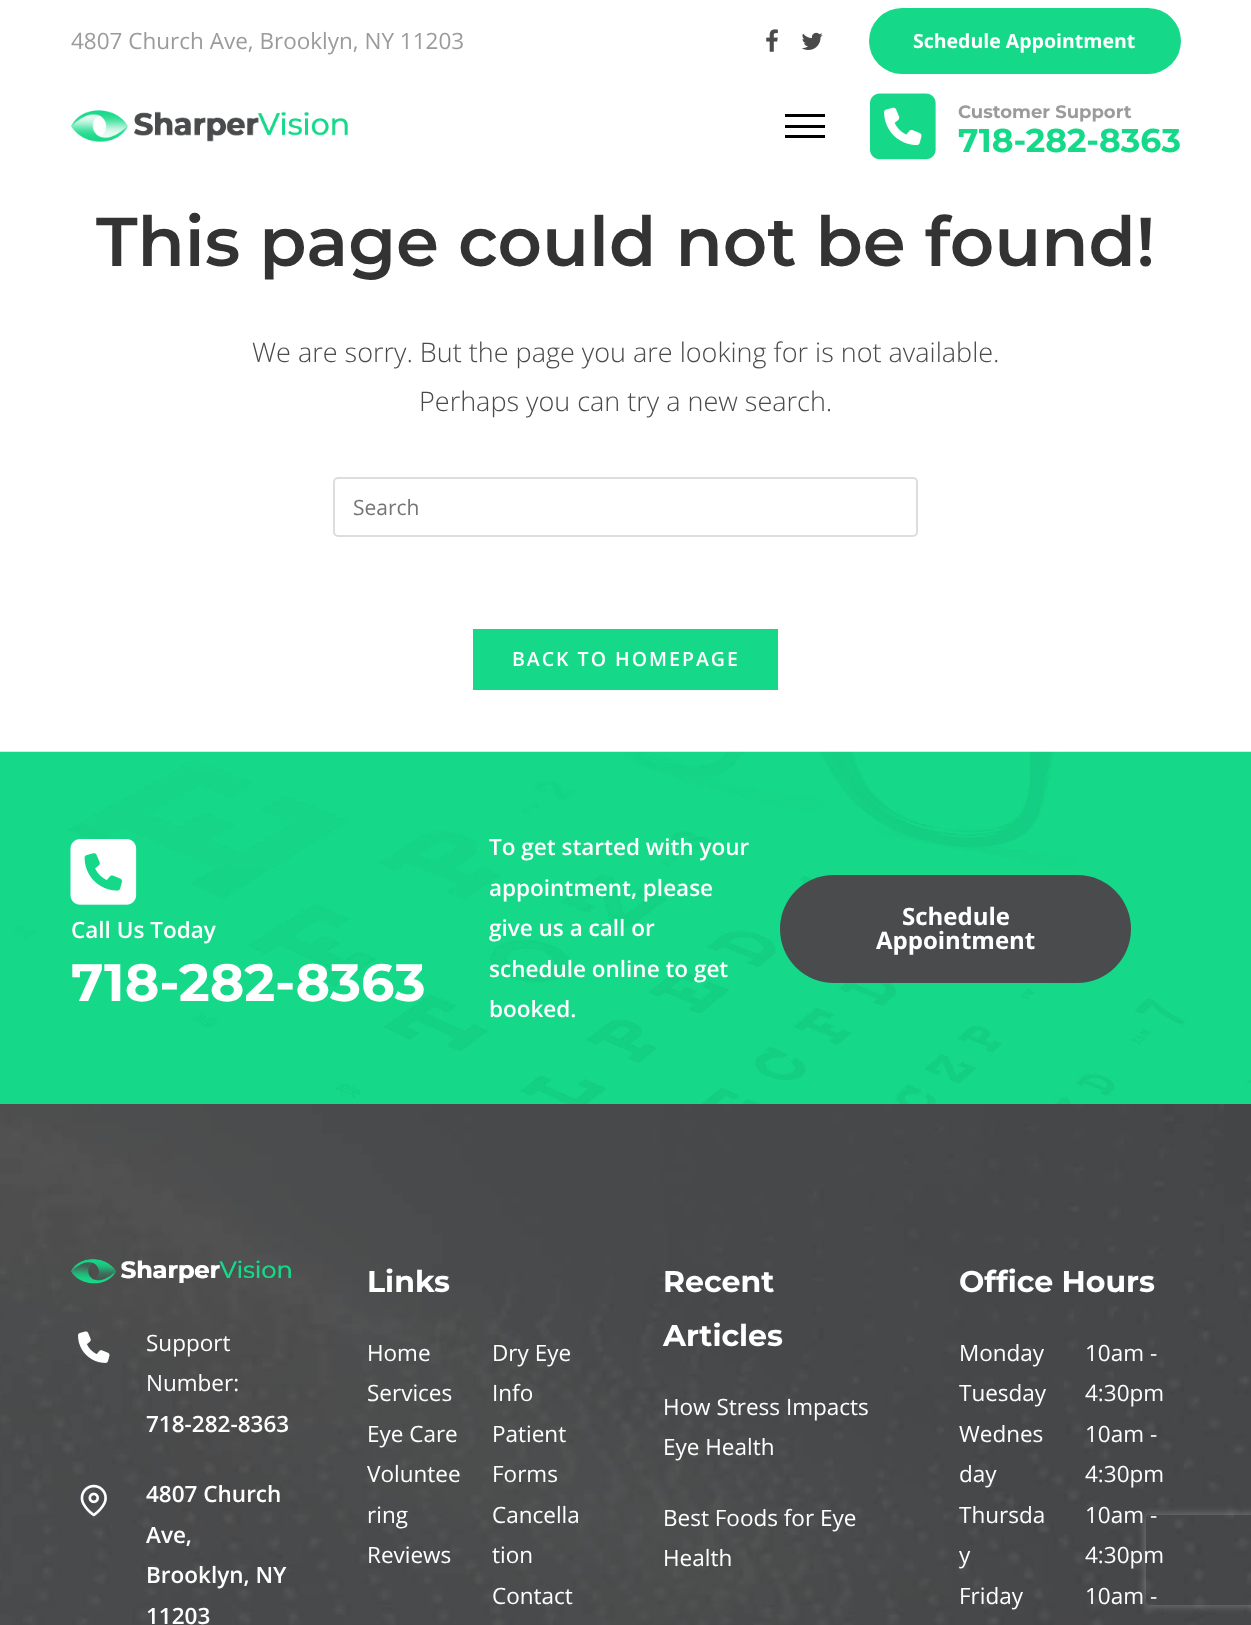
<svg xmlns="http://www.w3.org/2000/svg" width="1251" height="1625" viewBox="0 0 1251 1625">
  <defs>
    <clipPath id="clip1"><path d="M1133 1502H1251V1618H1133ZM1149 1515H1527C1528.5 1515 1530 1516.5 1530 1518V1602C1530 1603.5 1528.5 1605 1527 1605H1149C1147.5 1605 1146 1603.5 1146 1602V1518C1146 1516.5 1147.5 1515 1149 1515Z" clip-rule="evenodd"/></clipPath>
  </defs>
  <rect width="100%" height="100%" fill="#fff"/>
  <image x="766" y="29" width="12" height="23" href="img/1.png"/>
  <image x="801" y="32" width="22" height="18" href="img/2.png"/>
  <rect x="869" y="8" width="312" height="66" rx="33" fill="#15d988"/>
  <image x="70" y="110" width="278" height="32" href="img/3.png"/>
  <path d="M785 114h40v3H785z" fill="#000"/>
  <path d="M785 125h40v3H785z" fill="#000"/>
  <path d="M785 135h40v3H785z" fill="#000"/>
  <image x="870" y="93" width="66" height="67" href="img/4.png"/>
  <rect x="334" y="478" width="583" height="58" rx="4" fill="none" stroke="#ddd" stroke-width="2"/>
  <path d="M473 629h305v61H473z" fill="#15d988"/>
  <image x="0" y="751" width="1251" height="353" href="img/5.png"/>
  <image x="70" y="839" width="67" height="66" href="img/6.png"/>
  <rect x="780" y="875" width="351" height="108" rx="54" fill="#494b4c"/>
  <image x="0" y="1104" width="1251" height="521" href="img/7.png"/>
  <image x="71" y="1259" width="220" height="25" href="img/8.png"/>
  <image x="78" y="1331" width="32" height="32" href="img/9.png"/>
  <image x="80" y="1484" width="27" height="33" href="img/10.png"/>
  <g clip-path="url(#clip1)">
    <rect x="1146" y="1515" width="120" height="90" rx="3" fill="#808080" filter="blur(4px)"/>
  </g>
  <text x="71" y="49" font-family="Open Sans" font-size="22.5" fill="#9b9b9b">4807 Church Ave, Brooklyn, NY 11203</text>
  <text x="913" y="48" font-family="Open Sans" font-size="19.5" font-weight="bold" fill="#fff">Schedule Appointment</text>
  <text x="958" y="118" font-family="Montserrat" font-size="18" font-weight="bold" fill="#9b9b9b">Customer Support</text>
  <text x="958" y="152" font-family="Montserrat" font-size="33" font-weight="bold" fill="#15d988">718-282-8363</text>
  <text x="96" y="266" font-family="Montserrat" font-size="69" font-weight="600" fill="#333">This page could not be found!</text>
  <g font-family="Open Sans" font-size="27" font-weight="300" fill="#4a4a4a">
    <text x="252" y="362">We are sorry. But the page you are looking for is not available.</text>
    <text x="419" y="411">Perhaps you can try a new search.</text>
  </g>
  <text x="353" y="515" font-family="Open Sans" font-size="21" fill="#757575">Search</text>
  <text x="512" y="666" font-family="Open Sans" font-size="19.5" font-weight="600" letter-spacing="2" fill="#fff">BACK TO HOMEPAGE</text>
  <text x="71" y="938" font-family="Open Sans" font-size="22.5" font-weight="600" fill="#fff">Call Us Today</text>
  <text x="71" y="1001" font-family="Montserrat" font-size="52.5" font-weight="bold" fill="#fff">718-282-8363</text>
  <g font-family="Open Sans" font-size="22.5" font-weight="600" fill="#fff">
    <text x="489" y="855">To get started with your</text>
    <text x="489" y="896">appointment, please</text>
    <text x="489" y="936">give us a call or</text>
    <text x="489" y="977">schedule online to get</text>
    <text x="489" y="1017">booked.</text>
  </g>
  <g font-family="Open Sans" font-size="24" font-weight="bold" fill="#fff">
    <text x="902" y="925">Schedule</text>
    <text x="876" y="949">Appointment</text>
  </g>
  <g font-family="Open Sans" font-size="22.5" fill="#fff">
    <text x="146" y="1351">Support</text>
    <text x="146" y="1391">Number:</text>
  </g>
  <g font-family="Open Sans" font-size="22.5" font-weight="600" fill="#fff">
    <text x="146" y="1432">718-282-8363</text>
    <text x="146" y="1502">4807 Church</text>
    <text x="146" y="1543">Ave,</text>
    <text x="146" y="1583">Brooklyn, NY</text>
    <text x="146" y="1624">11203</text>
  </g>
  <text x="367" y="1292" font-family="Montserrat" font-size="30" font-weight="bold" fill="#fff">Links</text>
  <g font-family="Open Sans" font-size="22.5" fill="#fff">
    <text x="367" y="1361">Home</text>
    <text x="367" y="1401">Services</text>
    <text x="367" y="1442">Eye Care</text>
    <text x="367" y="1482">Voluntee</text>
    <text x="367" y="1523">ring</text>
    <text x="367" y="1563">Reviews</text>
    <text x="492" y="1361">Dry Eye</text>
    <text x="492" y="1401">Info</text>
    <text x="492" y="1442">Patient</text>
    <text x="492" y="1482">Forms</text>
    <text x="492" y="1523">Cancella</text>
    <text x="492" y="1563">tion</text>
    <text x="492" y="1604">Contact</text>
  </g>
  <g font-family="Montserrat" font-size="30" font-weight="bold" fill="#fff">
    <text x="663" y="1292">Recent</text>
    <text x="663" y="1346">Articles</text>
  </g>
  <g font-family="Open Sans" font-size="22.5" fill="#fff">
    <text x="663" y="1415">How Stress Impacts</text>
    <text x="663" y="1455">Eye Health</text>
    <text x="663" y="1526">Best Foods for Eye</text>
    <text x="663" y="1566">Health</text>
  </g>
  <text x="959" y="1292" font-family="Montserrat" font-size="30" font-weight="bold" fill="#fff">Office Hours</text>
  <g font-family="Open Sans" font-size="22.5" fill="#fff">
    <text x="959" y="1361">Monday</text>
    <text x="959" y="1401">Tuesday</text>
    <text x="959" y="1442">Wednes</text>
    <text x="959" y="1482">day</text>
    <text x="959" y="1523">Thursda</text>
    <text x="959" y="1563">y</text>
    <text x="959" y="1604">Friday</text>
    <text x="1085" y="1361">10am -</text>
    <text x="1085" y="1401">4:30pm</text>
    <text x="1085" y="1442">10am -</text>
    <text x="1085" y="1482">4:30pm</text>
    <text x="1085" y="1523">10am -</text>
    <text x="1085" y="1563">4:30pm</text>
    <text x="1085" y="1604">10am -</text>
  </g>
</svg>
